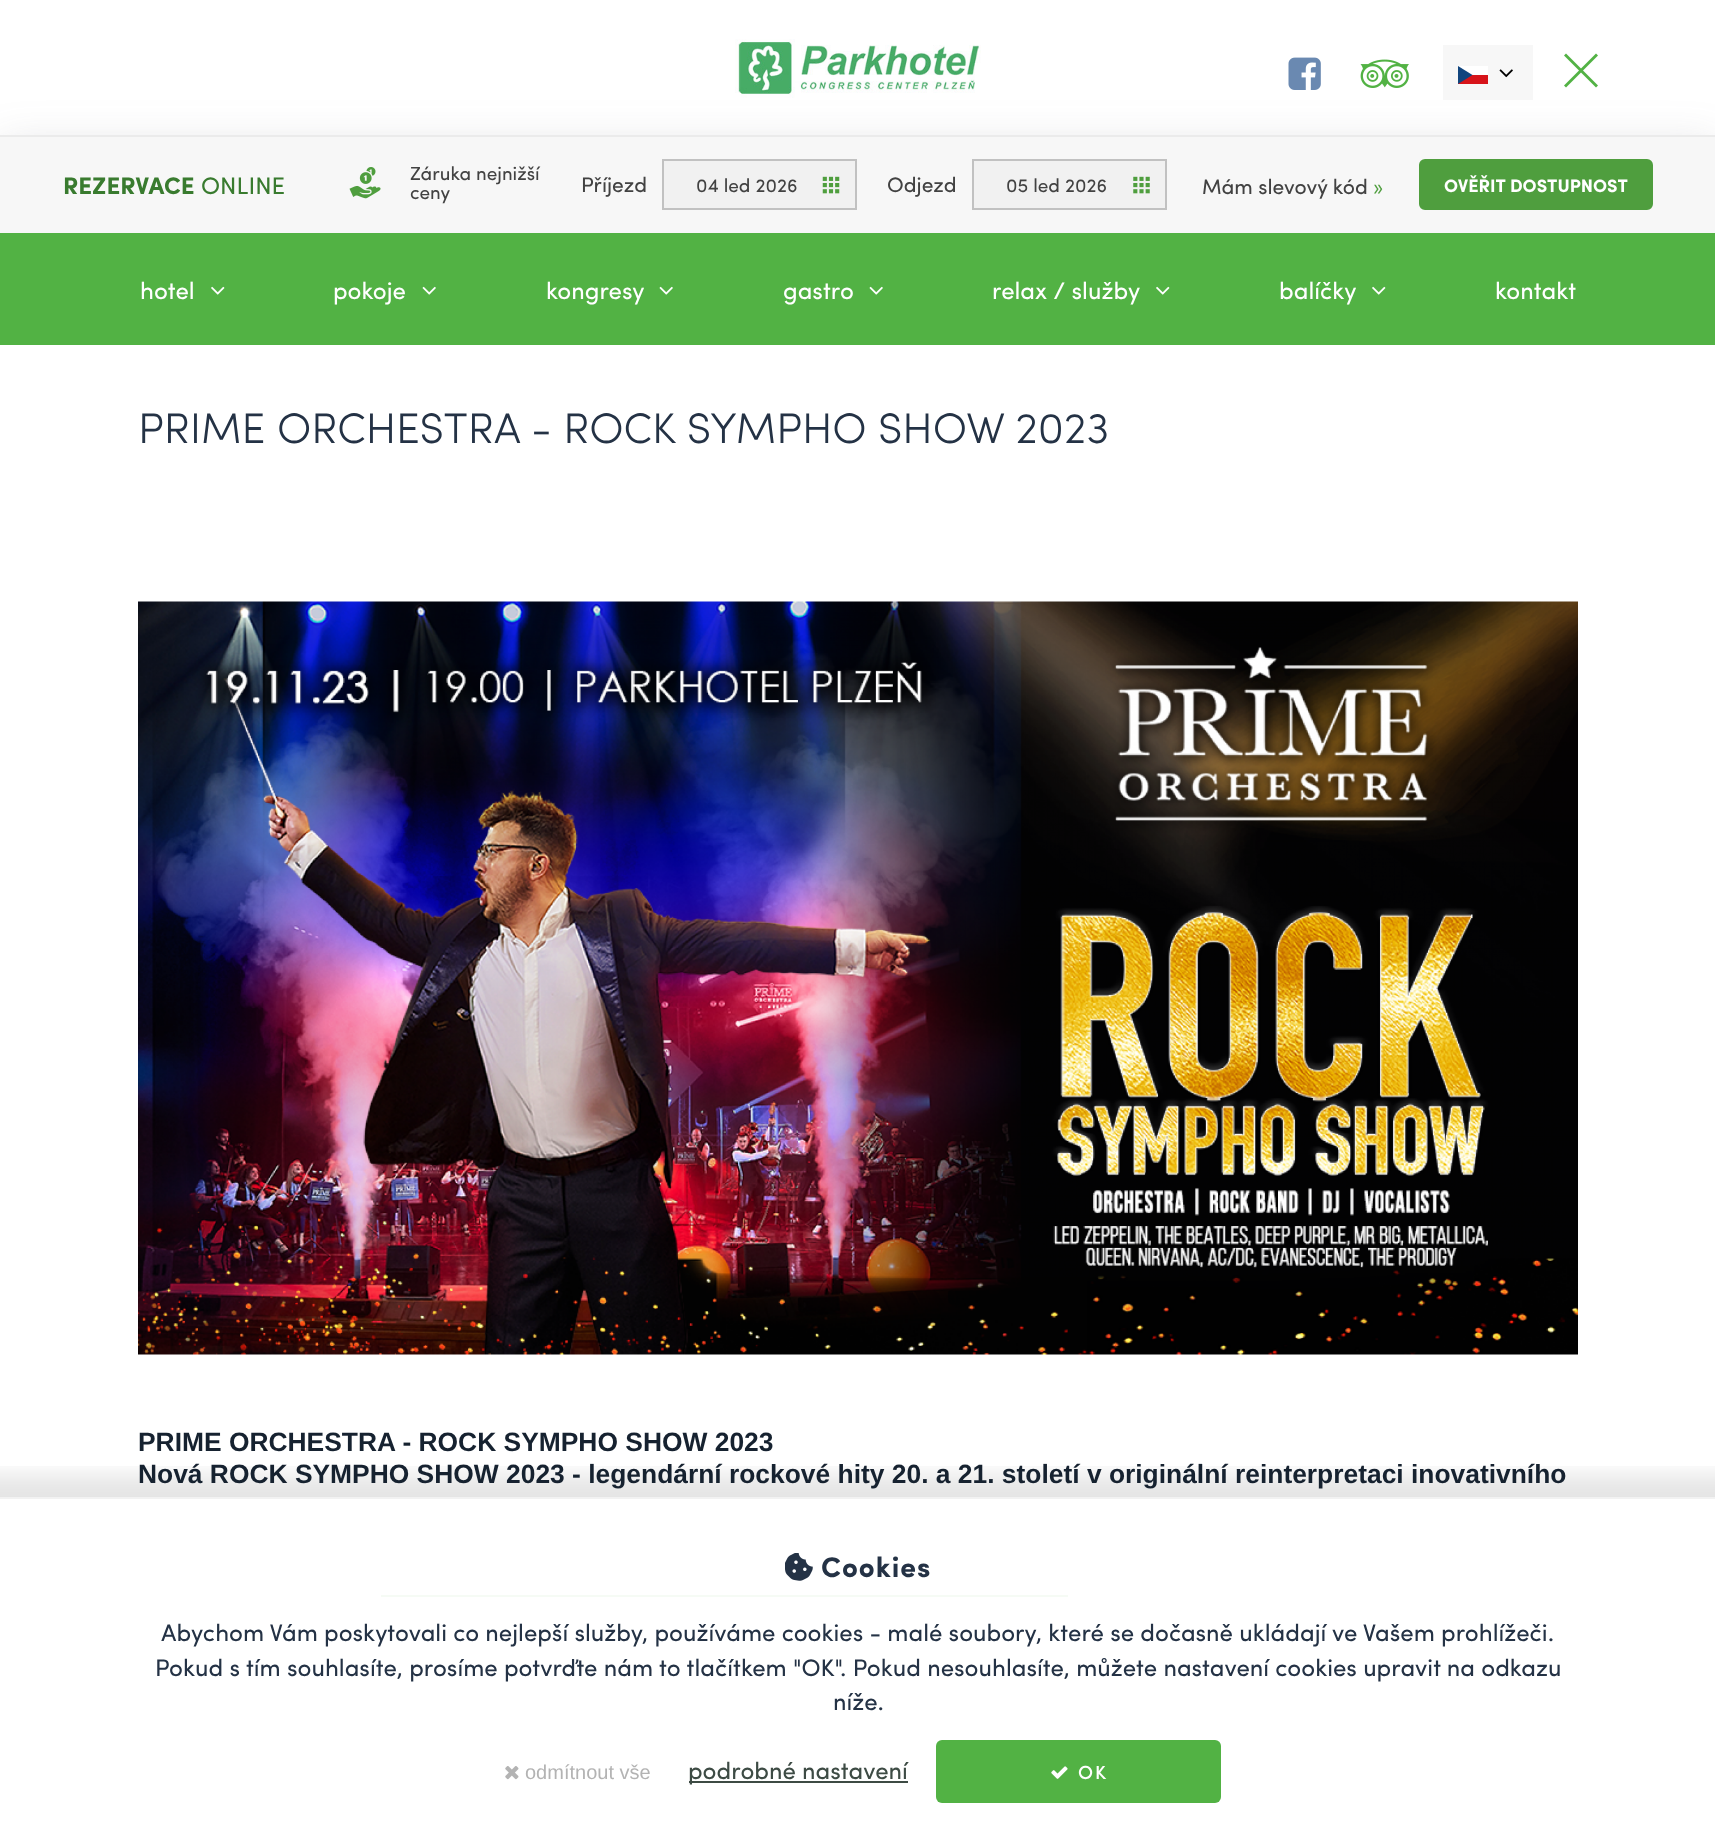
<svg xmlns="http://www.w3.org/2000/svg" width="1715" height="1831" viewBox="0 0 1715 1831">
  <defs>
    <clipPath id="clip1"><path d="M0 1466h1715v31H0z"/></clipPath>
  </defs>
  <rect width="100%" height="100%" fill="#fff"/>
  <path d="M0 146h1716v97H0z" fill="#64646f33" filter="blur(22px)"/>
  <image x="735" y="39" width="246" height="59" href="img/1.png"/>
  <image x="1288" y="57" width="33" height="33" href="img/2.png"/>
  <image x="1360" y="59" width="49" height="29" href="img/3.png"/>
  <path d="M1443 45h90v55H1443z" fill="#f7f7f7"/>
  <path d="M1458 75h30v9H1458z" fill="#d7141a"/>
  <path d="M1458 66h30v9H1458z" fill="#fff"/>
  <path d="M1472.5 75L1458 66V84Z" fill="#11457e"/>
  <image x="1499" y="69" width="14" height="9" href="img/4.png"/>
  <path d="M1564 85.5L1596 53.5L1598 55.5L1566 87.5Z" fill="#52b244"/>
  <path d="M1566 53.5L1598 85.5L1596 87.5L1564 55.5Z" fill="#52b244"/>
  <path d="M0 137h1715v96H0z" fill="#f7f7f7"/>
  <path d="M0 135h1715v2H0z" fill="#ebebeb"/>
  <image x="349" y="167" width="32" height="32" href="img/5.png"/>
  <path d="M663 160h193v49H663z" fill="#f1f1f1" stroke="#c1c1c1" stroke-width="2"/>
  <image x="822" y="176" width="18" height="18" href="img/6.png"/>
  <path d="M973 160h193v49H973z" fill="#f1f1f1" stroke="#c1c1c1" stroke-width="2"/>
  <image x="1133" y="176" width="17" height="18" href="img/7.png"/>
  <rect x="1420.5" y="160.5" width="231" height="48" rx="4.5" fill="#4f9e3e" stroke="#4f9e3e" stroke-width="3"/>
  <path d="M0 233h1715v112H0z" fill="#52b244"/>
  <image x="211" y="286" width="14" height="9" href="img/8.png"/>
  <image x="422" y="286" width="14" height="9" href="img/9.png"/>
  <image x="659" y="286" width="14" height="9" href="img/9.png"/>
  <image x="869" y="286" width="14" height="9" href="img/9.png"/>
  <image x="1156" y="286" width="14" height="9" href="img/8.png"/>
  <image x="1372" y="286" width="14" height="9" href="img/8.png"/>
  <image x="138" y="601" width="1440" height="754" href="img/10.png"/>
  <path d="M381 1595h687v2H381z" fill="#52b244"/>
  <g clip-path="url(#clip1)">
    <path d="M-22 1475h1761v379H-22z" fill="#0000001a" filter="blur(11px)"/>
  </g>
  <path d="M381 1595h687v2H381z" fill="#fffffff2"/>
  <path d="M0 1497h1715v2H0z" fill="#f2f2f2"/>
  <image x="785" y="1553" width="28" height="28" href="img/11.png"/>
  <image x="505" y="1766" width="14" height="14" href="img/12.png"/>
  <path d="M689 1781h219v2H689z" fill="#3d4b44"/>
  <rect x="936" y="1740" width="285" height="63" rx="6" fill="#52b244"/>
  <image x="1051" y="1766" width="17" height="13" href="img/13.png"/>
  <text x="63" y="194" font-family="Sofia" font-size="24" font-weight="bold" fill="#397b2f">REZERVACE</text>
  <text x="201" y="194" font-family="Sofia" font-size="24" fill="#397b2f">ONLINE</text>
  <g font-family="Sofia" font-size="19" fill="#424242">
    <text x="410" y="180">Záruka nejnižší</text>
    <text x="410" y="199">ceny</text>
  </g>
  <text x="581" y="192" font-family="Sofia" font-size="21" fill="#424242">Příjezd</text>
  <text x="696" y="192" font-family="Sofia" font-size="19" fill="#424242">04 led 2026</text>
  <text x="887" y="192" font-family="Sofia" font-size="21" fill="#424242">Odjezd</text>
  <text x="1006" y="192" font-family="Sofia" font-size="19" fill="#424242">05 led 2026</text>
  <text x="1202" y="194" font-family="Sofia" font-size="21" fill="#424242">Mám slevový kód</text>
  <text x="1373" y="194" font-family="Sofia" font-size="21" fill="#4f9e3e">»</text>
  <text x="1444" y="192" font-family="Sofia" font-size="18" font-weight="bold" fill="#fff">OVĚŘIT DOSTUPNOST</text>
  <g font-family="Sofia" font-size="24" fill="#fff">
    <text x="140" y="299">hotel</text>
    <text x="333" y="299">pokoje</text>
    <text x="546" y="299">kongresy</text>
    <text x="783" y="299">gastro</text>
    <text x="992" y="299">relax / služby</text>
    <text x="1279" y="299">balíčky</text>
    <text x="1495" y="299">kontakt</text>
  </g>
  <text x="138" y="443" font-family="Sofia" font-size="42.9" font-weight="300" letter-spacing="-0.05" fill="#243245">PRIME ORCHESTRA - ROCK SYMPHO SHOW 2023</text>
  <g font-family="Liberation Sans" font-size="26.4" font-weight="bold" fill="#162230">
    <text x="138" y="1451">PRIME ORCHESTRA - ROCK SYMPHO SHOW 2023</text>
    <text x="138" y="1483">Nová ROCK SYMPHO SHOW 2023 - legendární rockové hity 20. a 21. století v originální reinterpretaci inovativního</text>
  </g>
  <text x="821" y="1577" font-family="Sofia" font-size="28.5" font-weight="bold" letter-spacing="1" fill="#243245">Cookies</text>
  <g font-family="Sofia" font-size="24" fill="#243245">
    <text x="161" y="1641">Abychom Vám poskytovali co nejlepší služby, používáme cookies - malé soubory, které se dočasně ukládají ve Vašem prohlížeči.</text>
    <text x="155" y="1676">Pokud s tím souhlasíte, prosíme potvrďte nám to tlačítkem "OK". Pokud nesouhlasíte, můžete nastavení cookies upravit na odkazu</text>
    <text x="833" y="1710">níže.</text>
  </g>
  <text x="525" y="1779" font-family="Liberation Sans" font-size="20" fill="#b3b3b3">odmítnout vše</text>
  <text x="688" y="1779" font-family="Sofia" font-size="24" fill="#3d4b44">podrobné nastavení</text>
  <text x="1078" y="1779" font-family="Sofia" font-size="19" font-weight="500" letter-spacing="2" fill="#fff">OK</text>
</svg>
